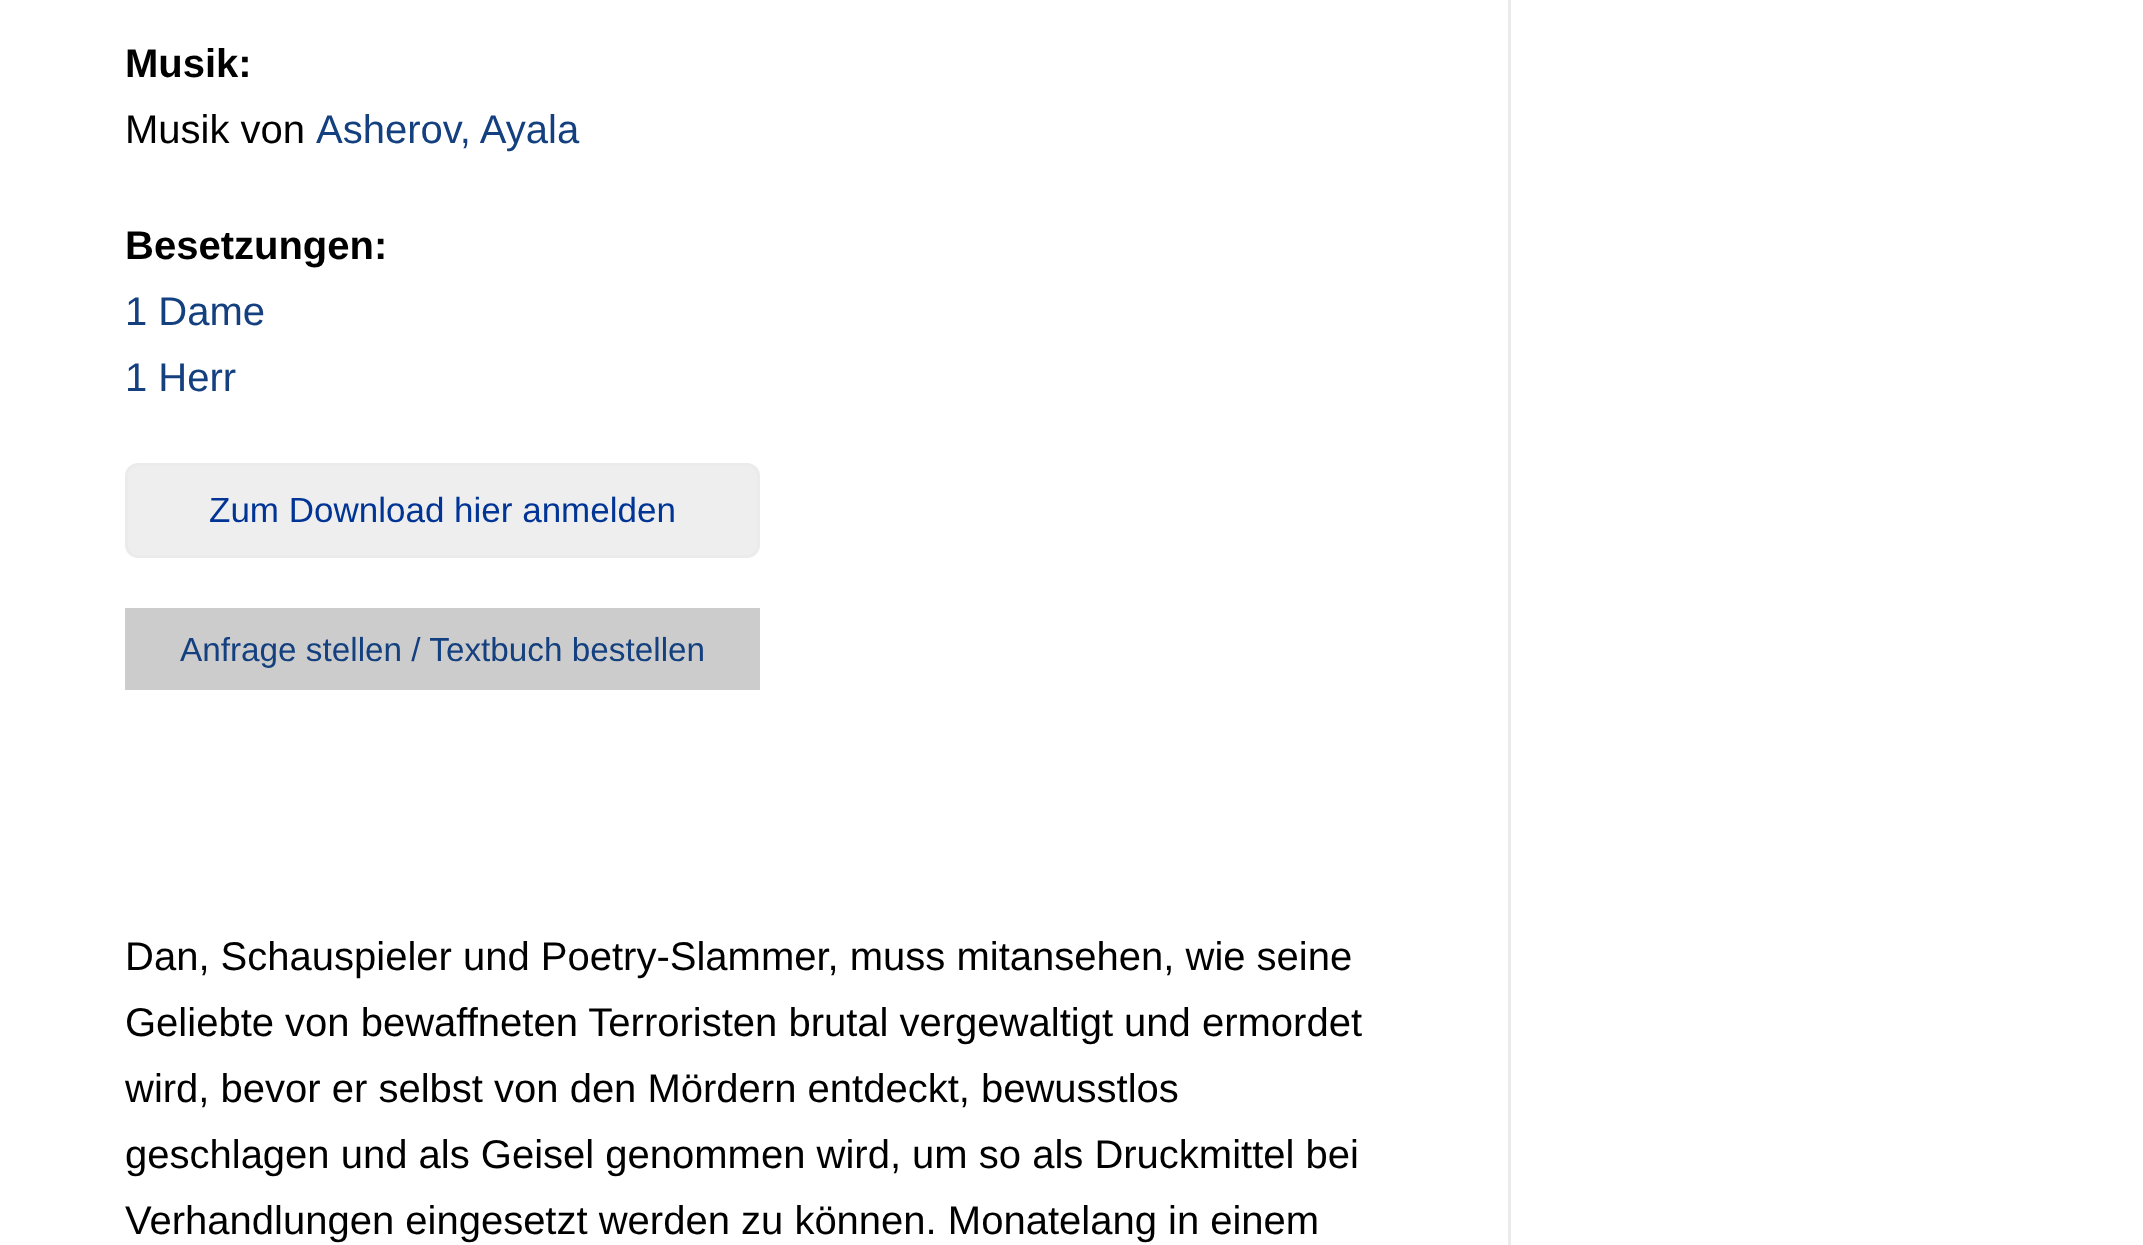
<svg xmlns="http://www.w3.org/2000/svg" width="2143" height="1245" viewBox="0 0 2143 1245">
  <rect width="100%" height="100%" fill="#fff"/>
  <path d="M1508 0h3v1245H1508z" fill="#ebebeb"/>
  <rect x="126.5" y="464.5" width="632" height="92" rx="11.5" fill="#eee" stroke="#ebebeb" stroke-width="3"/>
  <path d="M125 608h635v82H125z" fill="#ccc"/>
  <text x="125" y="77" font-family="Liberation Sans" font-size="40" font-weight="bold" fill="#000">Musik:</text>
  <text x="125" y="143" font-family="Liberation Sans" font-size="40" fill="#000">Musik von</text>
  <text x="316" y="143" font-family="Liberation Sans" font-size="40" fill="#14407f">Asherov, Ayala</text>
  <text x="125" y="259" font-family="Liberation Sans" font-size="40" font-weight="bold" fill="#000">Besetzungen:</text>
  <g font-family="Liberation Sans" font-size="40" fill="#14407f">
    <text x="125" y="325">1 Dame</text>
    <text x="125" y="391">1 Herr</text>
  </g>
  <text x="209" y="522" font-family="Liberation Sans" font-size="35" fill="#003495">Zum Download hier anmelden</text>
  <text x="180" y="661" font-family="Liberation Sans" font-size="33.3" fill="#14407f">Anfrage stellen / Textbuch bestellen</text>
  <g font-family="Liberation Sans" font-size="40" fill="#000">
    <text x="125" y="970">Dan, Schauspieler und Poetry-Slammer, muss mitansehen, wie seine</text>
    <text x="125" y="1036">Geliebte von bewaffneten Terroristen brutal vergewaltigt und ermordet</text>
    <text x="125" y="1102">wird, bevor er selbst von den Mördern entdeckt, bewusstlos</text>
    <text x="125" y="1168">geschlagen und als Geisel genommen wird, um so als Druckmittel bei</text>
    <text x="125" y="1234">Verhandlungen eingesetzt werden zu können. Monatelang in einem</text>
  </g>
</svg>
